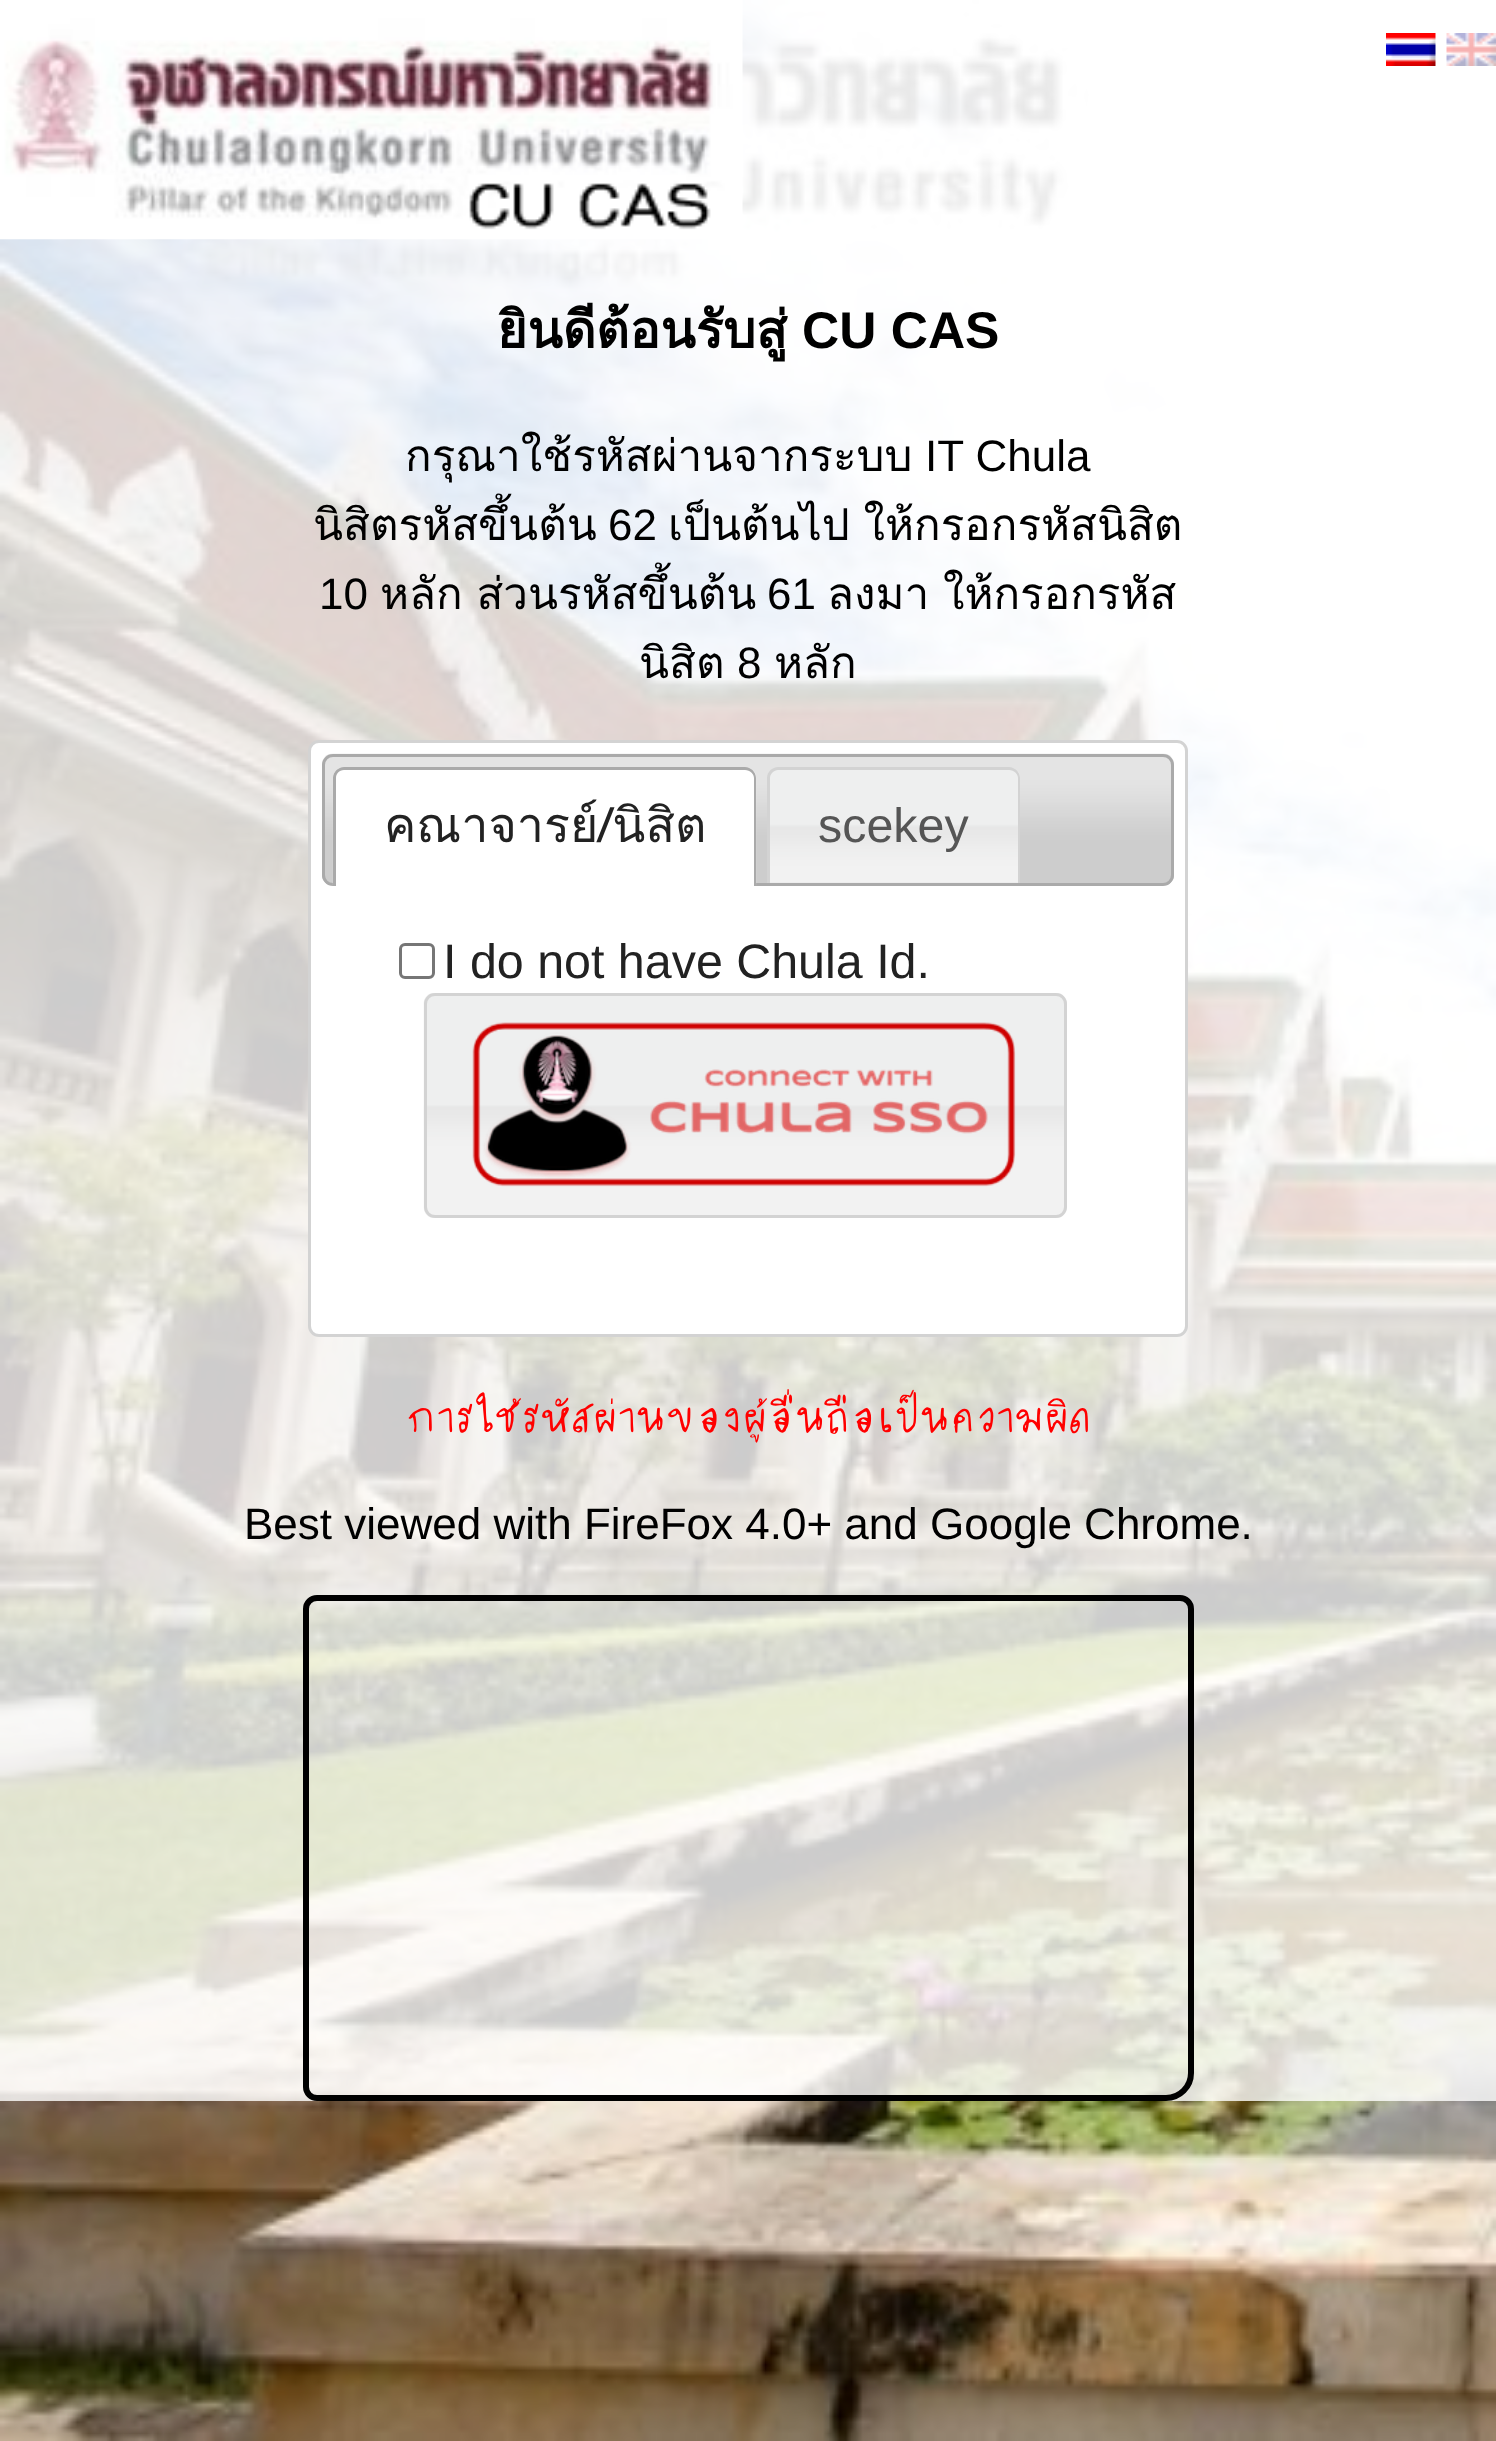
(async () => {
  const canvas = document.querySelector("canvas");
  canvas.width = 1496;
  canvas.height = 2441;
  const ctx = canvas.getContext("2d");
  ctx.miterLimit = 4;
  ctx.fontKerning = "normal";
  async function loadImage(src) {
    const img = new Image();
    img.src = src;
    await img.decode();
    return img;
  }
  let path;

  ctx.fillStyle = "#ffffff";
  ctx.fillRect(0, 0, 1496, 2441);
  ctx.drawImage(await loadImage("img/1.png"), 0, 0, 1496, 2441);
  ctx.fillStyle = "rgba(255, 255, 255, 0.8)";
  ctx.fillRect(0, 0, 1496, 2101);
  ctx.drawImage(await loadImage("img/2.png"), 0, 0, 743, 240);
  ctx.drawImage(await loadImage("img/3.png"), 1386, 33, 50, 33);
  ctx.drawImage(await loadImage("img/4.png"), 1446, 33, 50, 33);
  ctx.fillStyle = "#ffffff";
  ctx.beginPath();
  ctx.roundRect(309.5, 741.5, 877, 594, 9.5);
  ctx.fill();
  ctx.strokeStyle = "#d3d3d3";
  ctx.lineWidth = 3;
  ctx.stroke();
  ctx.drawImage(await loadImage("img/5.png"), 322, 753, 852, 132);
  ctx.beginPath();
  ctx.roundRect(323.5, 755.5, 849, 129, 9.5);
  ctx.strokeStyle = "#aaaaaa";
  ctx.stroke();
  ctx.beginPath();
  ctx.roundRect(336, 770, 418, 116, [8, 8, 0, 0]);
  ctx.fill();
  ctx.drawImage(await loadImage("img/6.png"), 332, 767, 425, 119);
  ctx.fillStyle = "#aaaaaa";
  path = new Path2D("M344 767H745C751 767 756 772 756 778V886H333V778C333 772 338 767 344 767ZM344 770H745C750 770 754 774 754 778V886H336V778C336 774 339 770 344 770Z");
  ctx.fill(path, "evenodd");
  ctx.fillStyle = "#e6e6e6";
  ctx.beginPath();
  ctx.roundRect(770, 770, 248, 113, [8, 8, 0, 0]);
  ctx.fill();
  ctx.drawImage(await loadImage("img/7.png"), 767, 767, 253, 116);
  ctx.fillStyle = "#d3d3d3";
  path = new Path2D("M778 767H1009C1015 767 1020 772 1020 778V883H767V778C767 772 772 767 778 767ZM778 770H1009C1014 770 1018 774 1018 778V883H770V778C770 774 774 770 778 770Z");
  ctx.fill(path, "evenodd");
  ctx.beginPath();
  ctx.roundRect(400.5, 944.5, 33, 33, 4.5);
  ctx.strokeStyle = "#767676";
  ctx.stroke();
  ctx.drawImage(await loadImage("img/8.png"), 423, 993, 644, 225);
  ctx.beginPath();
  ctx.roundRect(425.5, 994.5, 640, 222, 9.5);
  ctx.strokeStyle = "#d3d3d3";
  ctx.stroke();
  ctx.drawImage(await loadImage("img/9.png"), 472, 1022, 544, 165);
  ctx.beginPath();
  ctx.roundRect(306, 1598, 885, 500, [11, 11, 25, 11]);
  ctx.strokeStyle = "#000000";
  ctx.lineWidth = 6;
  ctx.stroke();
  ctx.font = "bold 51.5px Loma";
  ctx.fillStyle = "#000000";
  ctx.fillText("ยินดีต้อนรับสู่", 497, 348);
  ctx.font = "bold 51.5px Liberation Sans";
  ctx.fillText("CU CAS", 802, 348);
  ctx.font = "44px Loma";
  ctx.fillText("กรุณาใช้รหัสผ่านจากระบบ", 405, 471);
  ctx.font = "44px Liberation Sans";
  ctx.fillText("IT Chula", 925, 471);
  ctx.font = "44px Loma";
  ctx.fillText("นิสิตรหัสขึ้นต้น", 313, 540);
  ctx.font = "44px Liberation Sans";
  ctx.fillText("62", 608, 540);
  ctx.wordSpacing = "-1px";
  ctx.font = "44px Loma";
  ctx.fillText("เป็นต้นไป ให้กรอกรหัสนิสิต", 668, 540);
  ctx.wordSpacing = "0px";
  ctx.font = "44px Liberation Sans";
  ctx.fillText("10", 319, 609);
  ctx.wordSpacing = "-1px";
  ctx.font = "44px Loma";
  ctx.fillText("หลัก ส่วนรหัสขึ้นต้น", 380, 609);
  ctx.wordSpacing = "0px";
  ctx.font = "44px Liberation Sans";
  ctx.fillText("61", 767, 609);
  ctx.wordSpacing = "-1px";
  ctx.font = "44px Loma";
  ctx.fillText("ลงมา ให้กรอกรหัส", 827, 609);
  ctx.wordSpacing = "0px";
  ctx.fillText("นิสิต", 639, 678);
  ctx.font = "44px Liberation Sans";
  ctx.fillText("8", 737, 678);
  ctx.font = "44px Loma";
  ctx.fillText("หลัก", 774, 678);
  ctx.font = "48.4px Loma";
  ctx.fillStyle = "#222222";
  ctx.fillText("คณาจารย์/นิสิต", 384, 842);
  ctx.font = "48.4px Liberation Sans";
  ctx.fillStyle = "#555555";
  ctx.fillText("scekey", 818, 842);
  ctx.fillStyle = "#222222";
  ctx.fillText("I do not have Chula Id.", 443, 978);
  ctx.font = "44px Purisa";
  ctx.fillStyle = "#ff0000";
  ctx.fillText("การใช้รหัสผ่านของผู้อื่นถือเป็นความผิด", 406, 1432);
  ctx.font = "44px Liberation Sans";
  ctx.fillStyle = "#000000";
  ctx.fillText("Best viewed with FireFox 4.0+ and Google Chrome.", 244, 1539);
})();
